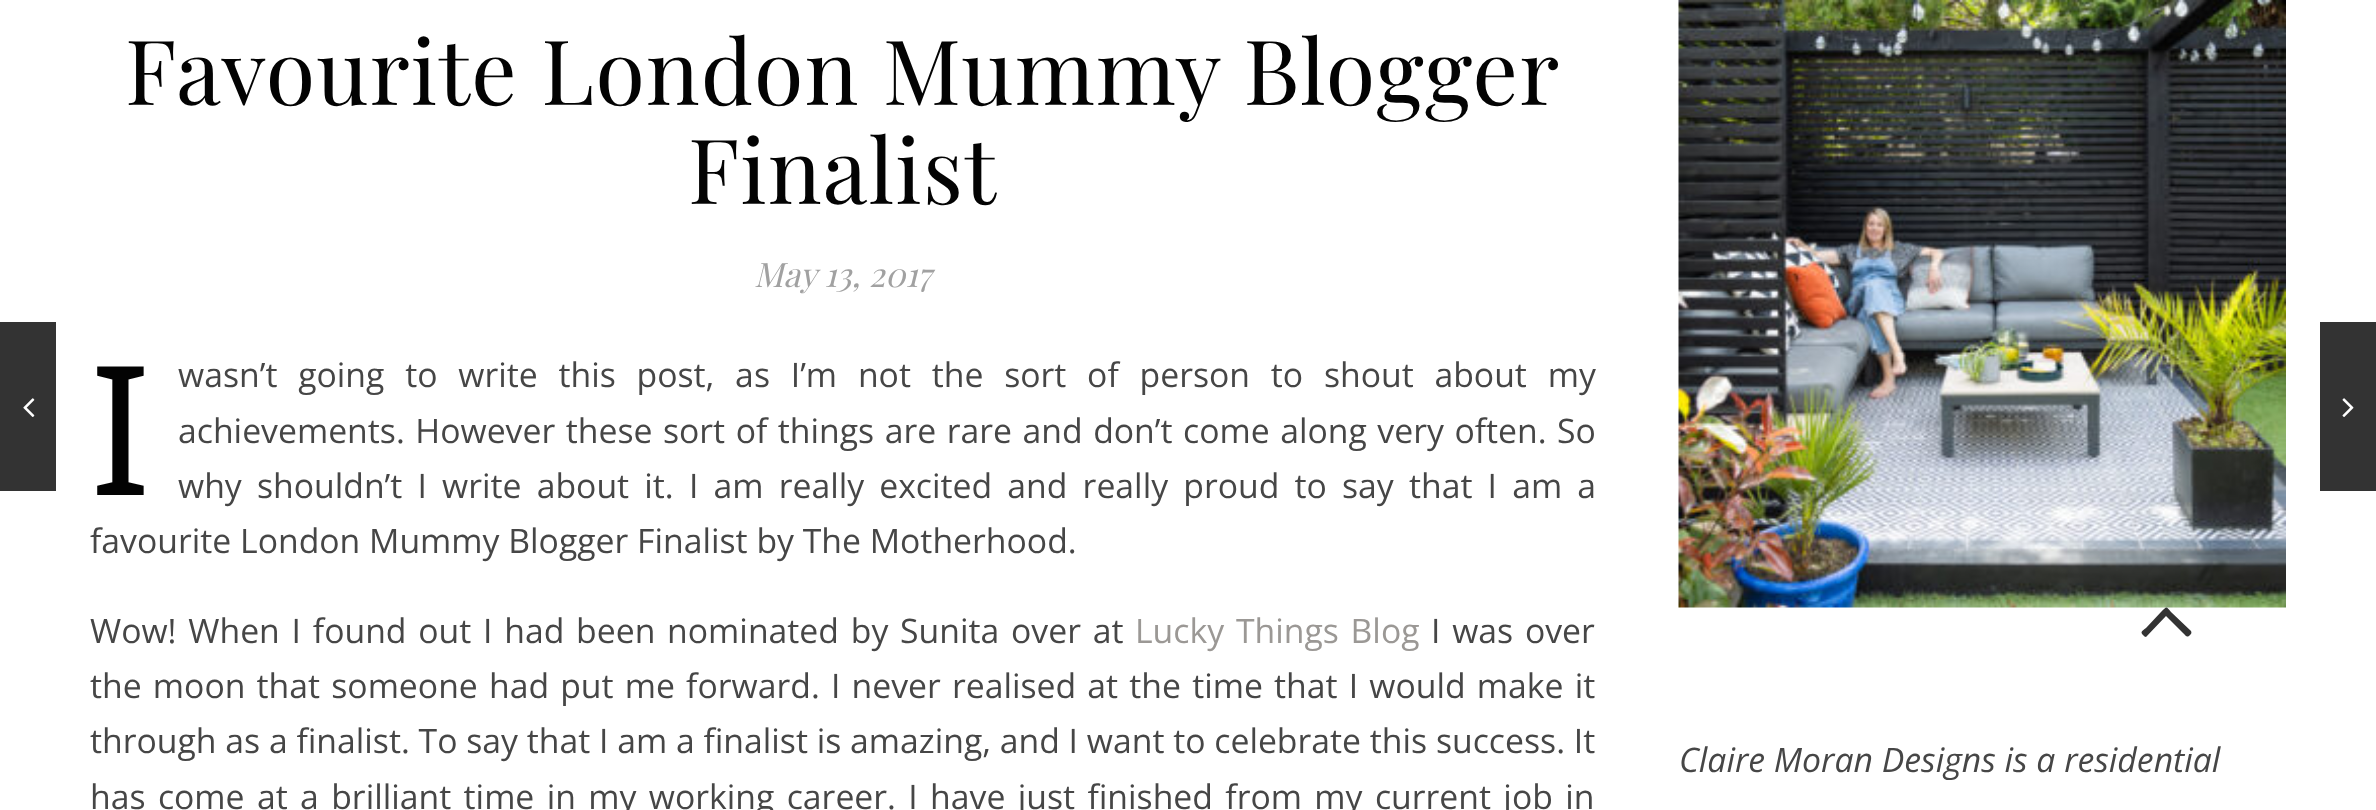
(async () => {
  const canvas = document.querySelector("canvas");
  canvas.width = 2376;
  canvas.height = 810;
  const ctx = canvas.getContext("2d");
  ctx.miterLimit = 4;
  ctx.fontKerning = "normal";
  async function loadImage(src) {
    const img = new Image();
    img.src = src;
    await img.decode();
    return img;
  }
  let path;

  ctx.fillStyle = "#ffffff";
  ctx.fillRect(0, 0, 2376, 810);
  ctx.fillStyle = "#333333";
  ctx.fillRect(0, 322, 56, 169);
  ctx.drawImage(await loadImage("img/1.png"), 23, 398, 12, 19);
  ctx.fillRect(2320, 322, 56, 169);
  ctx.drawImage(await loadImage("img/2.png"), 2342, 398, 12, 19);
  ctx.drawImage(await loadImage("img/3.png"), 1678, 0, 608, 608);
  path = new Path2D("M2191 631C2192 633 2191 634 2190 635C2187 638 2186 636 2183 633L2166 616L2146 637C2145 637 2144 636 2143 635C2140 632 2142 631 2146 628L2161 612C2167 606 2166 606 2171 612Z");
  ctx.fill(path);
  ctx.letterSpacing = "1.1px";
  ctx.font = "90px Playfair Display";
  ctx.fillStyle = "#030303";
  ctx.fillText("Favourite London Mummy Blogger", 125, 105);
  ctx.fillText("Finalist", 688, 204);
  ctx.letterSpacing = "0px";
  ctx.font = "italic 33.75px Playfair Display";
  ctx.fillStyle = "#a1a1a1";
  ctx.fillText("May 13, 2017", 754, 287);
  ctx.font = "180px Noto Sans";
  ctx.fillStyle = "#030303";
  ctx.fillText("I", 90, 495);
  ctx.wordSpacing = "12px";
  ctx.font = "33.75px Open Sans";
  ctx.fillStyle = "#464646";
  ctx.fillText("wasn’t going to write this post, as I’m not the sort of person to shout about my", 178, 387);
  ctx.wordSpacing = "1.75px";
  ctx.fillText("achievements. However these sort of things are rare and don’t come along very often. So", 178, 443);
  ctx.wordSpacing = "6.4px";
  ctx.fillText("why shouldn’t I write about it. I am really excited and really proud to say that I am a", 178, 498);
  ctx.wordSpacing = "0px";
  ctx.fillText("favourite London Mummy Blogger Finalist by The Motherhood.", 90, 553);
  ctx.wordSpacing = "3px";
  ctx.fillText("Wow! When I found out I had been nominated by Sunita over at", 90, 643);
  ctx.fillStyle = "#9b9895";
  ctx.fillText("Lucky Things Blog", 1135, 643);
  ctx.fillStyle = "#464646";
  ctx.fillText("I was over", 1431, 643);
  ctx.wordSpacing = "2.4px";
  ctx.fillText("the moon that someone had put me forward. I never realised at the time that I would make it", 90, 698);
  ctx.wordSpacing = "0px";
  ctx.fillText("through as a finalist. To say that I am a finalist is amazing, and I want to celebrate this success. It", 90, 753);
  ctx.wordSpacing = "3.6px";
  ctx.fillText("has come at a brilliant time in my working career. I have just finished from my current job in", 90, 809);
  ctx.wordSpacing = "0px";
  ctx.font = "italic 33.75px Open Sans";
  ctx.fillText("Claire Moran Designs is a residential", 1679, 772);
})();
